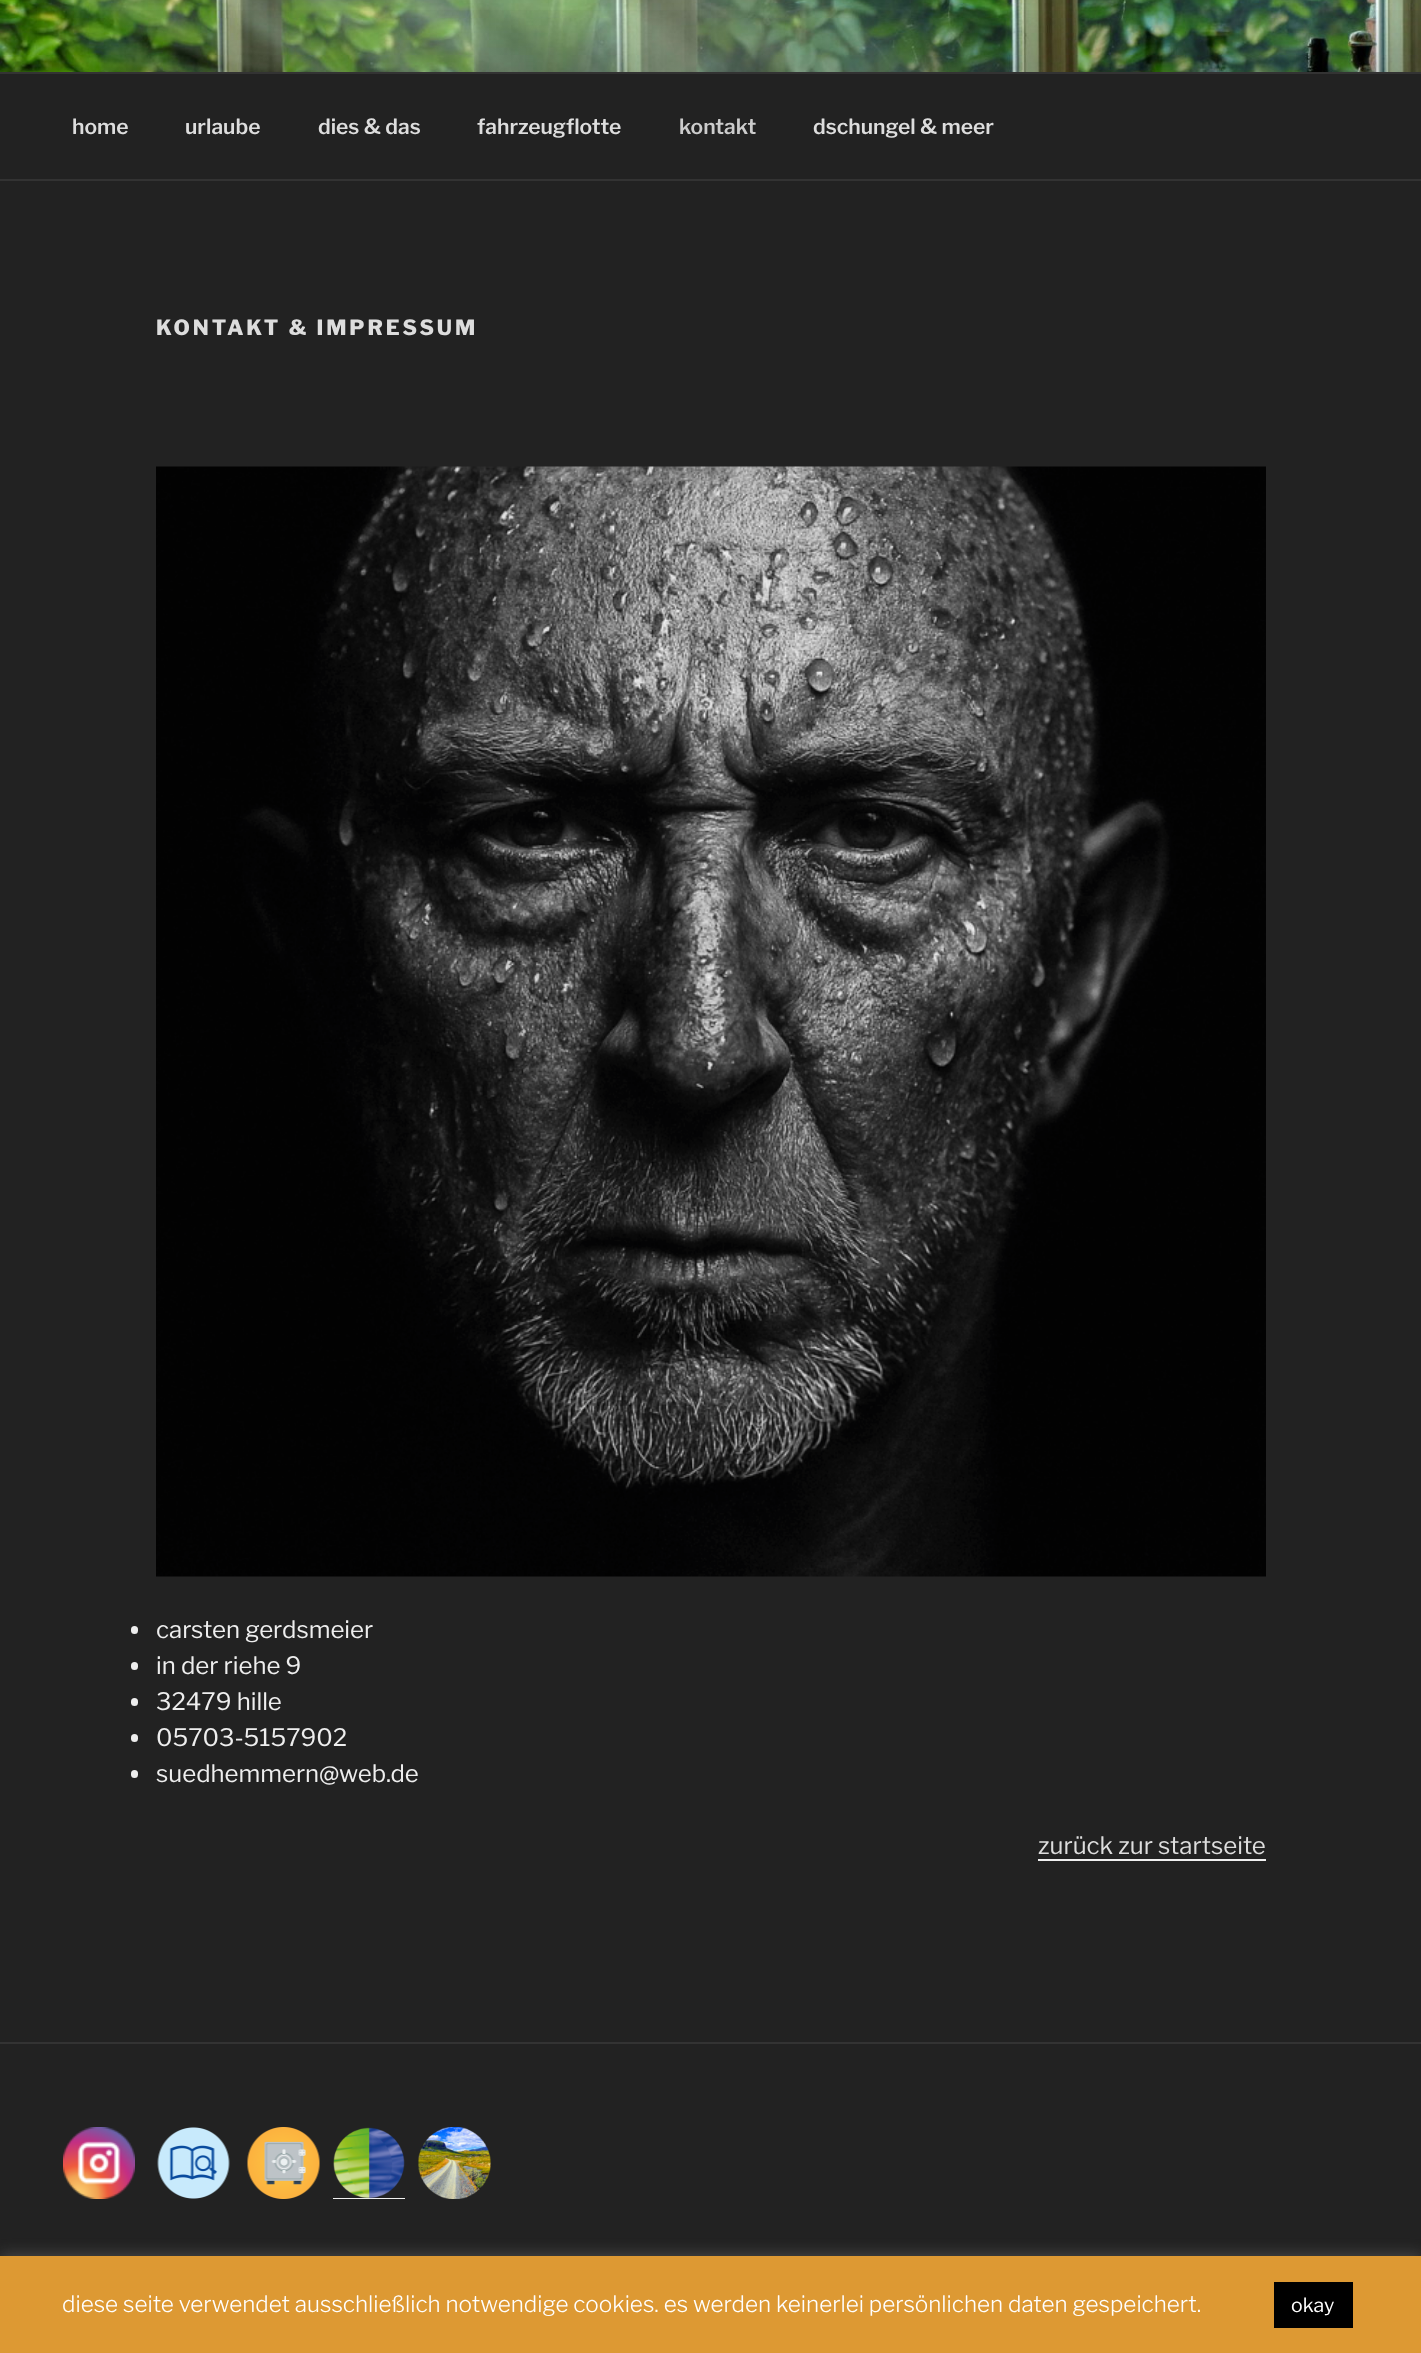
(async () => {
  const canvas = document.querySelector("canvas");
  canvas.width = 1421;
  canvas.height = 2353;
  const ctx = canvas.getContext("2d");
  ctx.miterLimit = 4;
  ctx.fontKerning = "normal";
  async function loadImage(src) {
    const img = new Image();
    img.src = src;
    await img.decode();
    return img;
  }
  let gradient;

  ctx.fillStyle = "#222222";
  ctx.fillRect(0, 0, 1421, 2353);
  ctx.drawImage(await loadImage("img/1.png"), 0, 0, 1421, 72);
  gradient = ctx.createLinearGradient(711, 0, 711, 180);
  gradient.addColorStop(0, "rgba(0, 0, 0, 0)");
  gradient.addColorStop(0.75, "rgba(0, 0, 0, 0.3)");
  gradient.addColorStop(1, "rgba(0, 0, 0, 0.3)");
  ctx.fillStyle = gradient;
  ctx.fillRect(0, 10, 1421, 62);
  ctx.fillStyle = "#333333";
  ctx.fillRect(0, 72, 1421, 2);
  ctx.fillRect(0, 179, 1421, 2);
  ctx.drawImage(await loadImage("img/2.png"), 156, 466, 1110, 1111);
  ctx.fillStyle = "#eeeeee";
  ctx.beginPath();
  ctx.roundRect(131, 1626, 7, 8, 3.5);
  ctx.fill();
  ctx.beginPath();
  ctx.roundRect(131, 1662, 7, 8, 3.5);
  ctx.fill();
  ctx.beginPath();
  ctx.roundRect(131, 1698, 7, 8, 3.5);
  ctx.fill();
  ctx.beginPath();
  ctx.roundRect(131, 1734, 7, 8, 3.5);
  ctx.fill();
  ctx.beginPath();
  ctx.roundRect(131, 1770, 7, 8, 3.5);
  ctx.fill();
  ctx.fillStyle = "#f0f0f0";
  ctx.fillRect(1038, 1859, 228, 2);
  ctx.fillStyle = "#333333";
  ctx.fillRect(0, 2042, 1421, 2);
  ctx.drawImage(await loadImage("img/3.png"), 63, 2127, 72, 72);
  ctx.drawImage(await loadImage("img/4.png"), 157, 2127, 73, 72);
  ctx.drawImage(await loadImage("img/5.png"), 247, 2127, 73, 72);
  ctx.fillStyle = "#f0f0f0";
  ctx.fillRect(333, 2198, 72, 1);
  ctx.drawImage(await loadImage("img/6.png"), 333, 2127, 72, 72);
  ctx.drawImage(await loadImage("img/7.png"), 418, 2127, 73, 72);
  ctx.fillStyle = "rgba(172, 171, 171, 0.3)";
  ctx.filter = "blur(7.5px)";
  ctx.beginPath();
  ctx.rect(0, 2255, 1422, 97);
  ctx.fill();
  ctx.filter = "none";
  ctx.fillStyle = "#dd9933";
  ctx.fillRect(0, 2256, 1421, 97);
  ctx.fillStyle = "#000000";
  ctx.fillRect(1274, 2282, 79, 46);
  ctx.font = "100 21px 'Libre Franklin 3'";
  ctx.fillStyle = "#dddddd";
  for (const [text, x, y] of [
    ["home", 72, 134],
    ["urlaube", 185, 134],
    ["dies & das", 318, 134],
    ["fahrzeugflotte", 477, 134],
  ]) {
    ctx.fillText(text, x, y);
  }
  ctx.fillStyle = "#cccccc";
  ctx.fillText("kontakt", 679, 134);
  ctx.fillStyle = "#dddddd";
  ctx.fillText("dschungel & meer", 813, 134);
  ctx.letterSpacing = "2.9px";
  ctx.font = "100 21px Libre Franklin";
  ctx.fillText("KONTAKT & IMPRESSUM", 156, 335);
  ctx.letterSpacing = "0px";
  ctx.font = "100 24px 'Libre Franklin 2'";
  ctx.fillStyle = "#eeeeee";
  for (const [text, x, y] of [
    ["carsten gerdsmeier", 156, 1638],
    ["in der riehe 9", 156, 1674],
    ["32479 hille", 156, 1710],
    ["05703-5157902", 156, 1746],
    ["suedhemmern@web.de", 156, 1782],
  ]) {
    ctx.fillText(text, x, y);
  }
  ctx.fillStyle = "#dddddd";
  ctx.fillText("zurück zur startseite", 1038, 1854);
  ctx.font = "100 22.5px 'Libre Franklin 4'";
  ctx.fillStyle = "#ffffff";
  ctx.fillText("diese seite verwendet ausschließlich notwendige cookies. es werden keinerlei persönlichen daten gespeichert.", 62, 2312);
  ctx.font = "100 19.5px 'Libre Franklin 2'";
  ctx.fillText("okay", 1291, 2312);
})();
